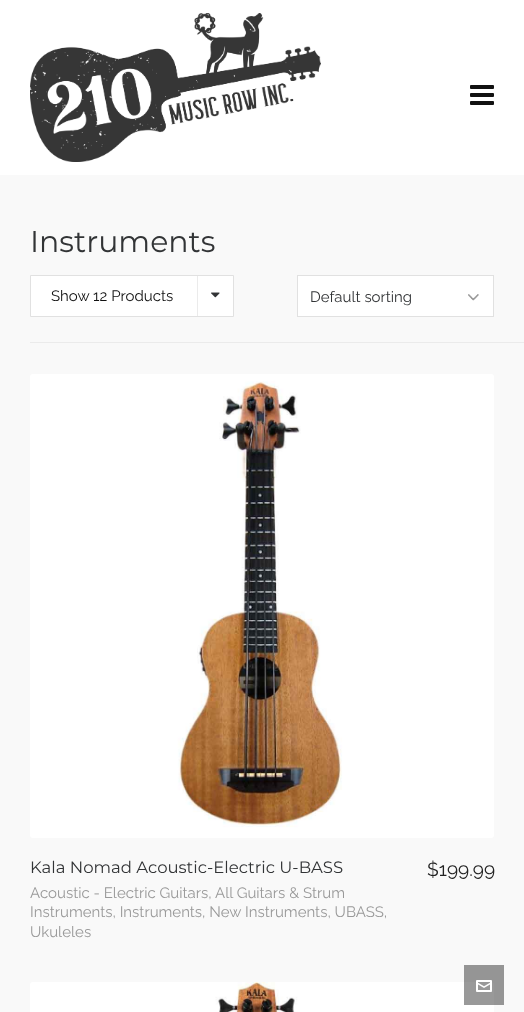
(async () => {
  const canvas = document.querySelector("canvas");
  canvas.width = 524;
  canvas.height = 1012;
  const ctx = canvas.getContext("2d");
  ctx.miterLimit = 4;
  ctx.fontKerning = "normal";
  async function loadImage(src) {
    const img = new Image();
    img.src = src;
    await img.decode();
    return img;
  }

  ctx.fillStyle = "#f9f9f9";
  ctx.fillRect(0, 0, 524, 1012);
  ctx.fillStyle = "#ffffff";
  ctx.fillRect(0, 0, 524, 175);
  ctx.drawImage(await loadImage("img/1.png"), 30, 13, 291, 149);
  ctx.drawImage(await loadImage("img/2.png"), 470, 85, 24, 20);
  ctx.beginPath();
  ctx.rect(30.5, 275.5, 203, 41);
  ctx.fill();
  ctx.strokeStyle = "#e1e1e1";
  ctx.stroke();
  ctx.fillStyle = "#ebebeb";
  ctx.fillRect(197, 276, 1, 40);
  ctx.drawImage(await loadImage("img/3.png"), 211, 292, 9, 6);
  ctx.fillStyle = "#ffffff";
  ctx.fillRect(298, 276, 195, 40);
  ctx.drawImage(await loadImage("img/4.png"), 468, 294, 11, 7);
  ctx.strokeRect(297.5, 275.5, 196, 41);
  ctx.fillStyle = "#ebebeb";
  ctx.fillRect(30, 342, 494, 1);
  ctx.drawImage(await loadImage("img/5.png"), 30, 374, 464, 464);
  ctx.drawImage(await loadImage("img/6.png"), 30, 982, 464, 30);
  ctx.fillStyle = "rgba(0, 0, 0, 0.4)";
  ctx.fillRect(464, 965, 40, 40);
  ctx.drawImage(await loadImage("img/7.png"), 476, 980, 16, 12);
  ctx.font = "100 30px Montserrat";
  ctx.fillStyle = "#323436";
  ctx.fillText("Instruments", 30, 252);
  ctx.font = "100 15px Raleway";
  ctx.fillStyle = "#111111";
  ctx.fillText("Show 12 Products", 51, 301);
  ctx.fillStyle = "#323436";
  ctx.fillText("Default sorting", 310, 302);
  ctx.font = "100 16.5px Montserrat";
  ctx.fillText("Kala Nomad Acoustic-Electric U-BASS", 30, 873);
  ctx.font = "100 15px Raleway";
  ctx.fillStyle = "#999999";
  for (const [text, x, y] of [
    ["Acoustic - Electric Guitars,", 30, 898],
    ["All Guitars & Strum", 215, 898],
    ["Instruments, Instruments, New Instruments, UBASS,", 30, 917],
    ["Ukuleles", 30, 937],
  ]) {
    ctx.fillText(text, x, y);
  }
  ctx.font = "100 19px Raleway";
  ctx.fillStyle = "#222222";
  ctx.fillText("$199.99", 427, 876);
})();
